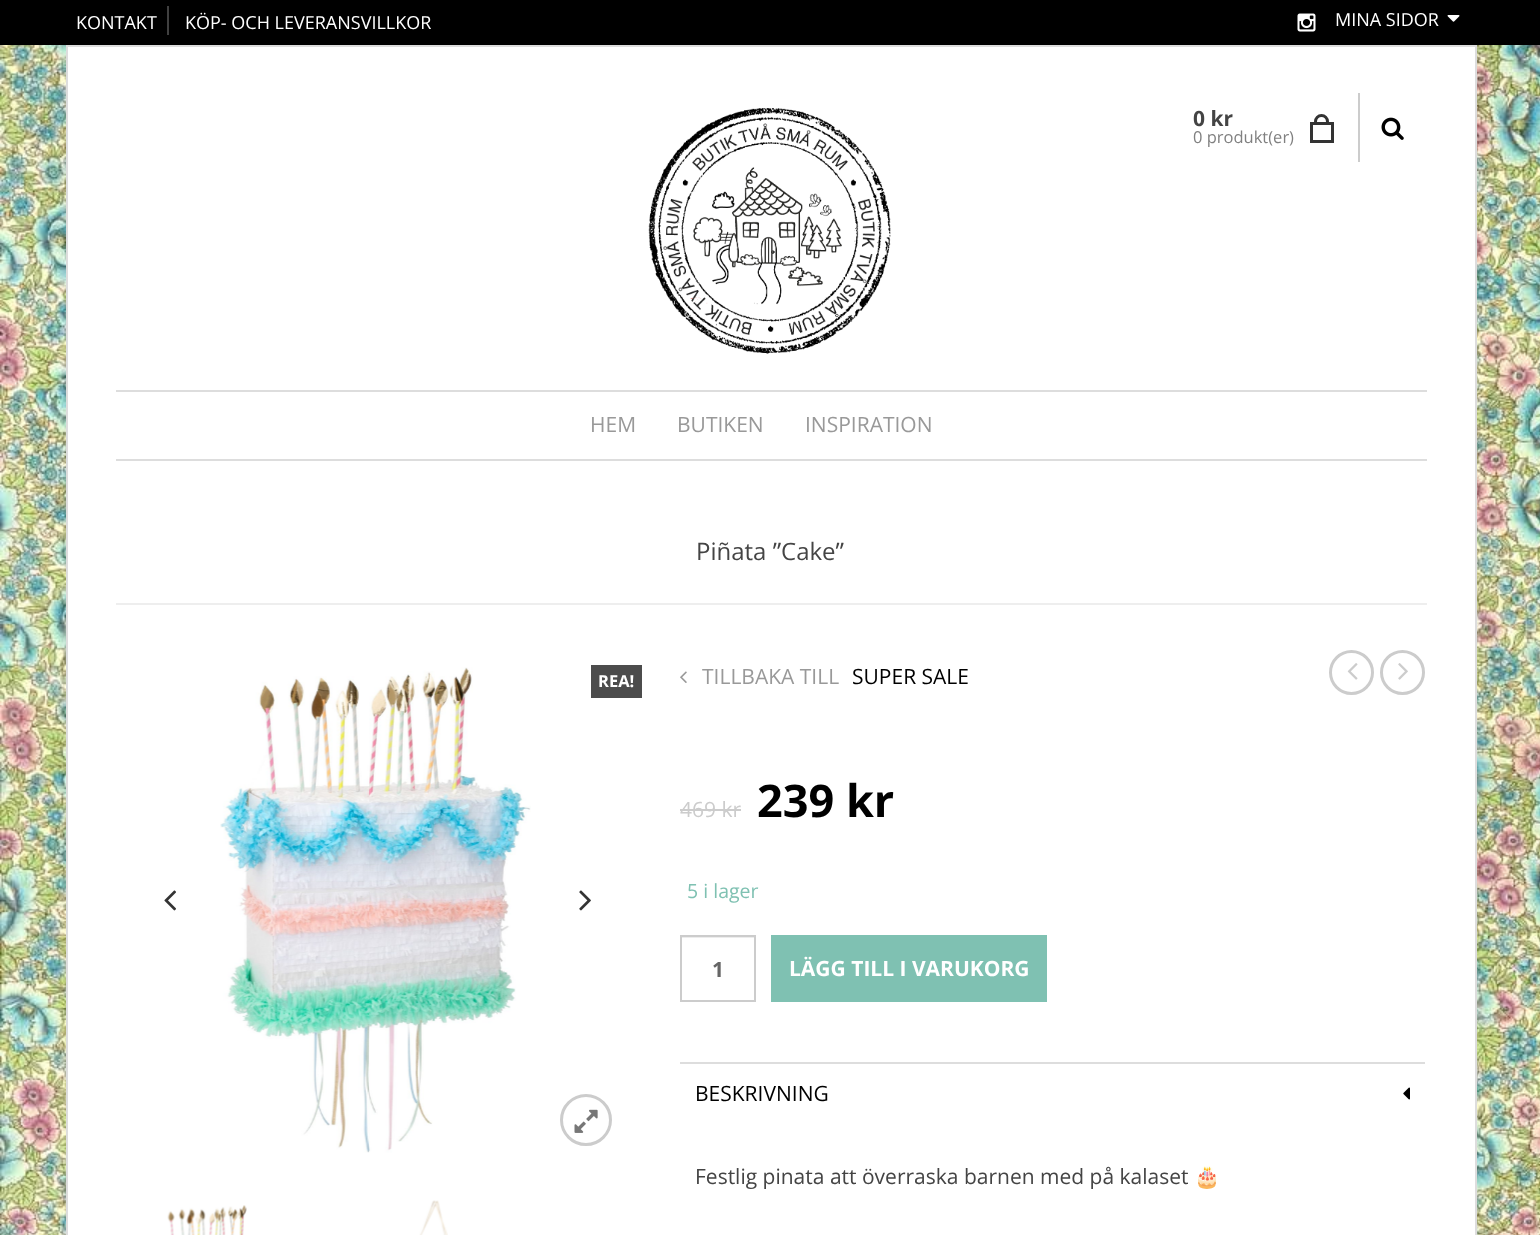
(async () => {
  const canvas = document.querySelector("canvas");
  canvas.width = 1540;
  canvas.height = 1235;
  const ctx = canvas.getContext("2d");
  ctx.miterLimit = 4;
  ctx.fontKerning = "normal";
  async function loadImage(src) {
    const img = new Image();
    img.src = src;
    await img.decode();
    return img;
  }

  ctx.fillStyle = "#ffffff";
  ctx.fillRect(0, 0, 1540, 1235);
  ctx.drawImage(await loadImage("img/1.png"), 0, 45, 1540, 1190);
  ctx.fillStyle = "#000000";
  ctx.fillRect(0, 0, 1540, 45);
  ctx.fillStyle = "#404040";
  ctx.fillRect(167, 6, 2, 29);
  ctx.drawImage(await loadImage("img/2.png"), 1297, 13, 19, 19);
  ctx.drawImage(await loadImage("img/3.png"), 1447, 15, 13, 7);
  for (const [x, y, w, h, color] of [
    [66, 45, 1410, 2, "#dddddd"],
    [1475, 45, 2, 416, "#dddddd"],
    [66, 45, 2, 416, "#dddddd"],
    [68, 47, 1407, 1188, "#ffffff"],
  ]) {
    ctx.fillStyle = color;
    ctx.fillRect(x, y, w, h);
  }
  ctx.drawImage(await loadImage("img/4.png"), 648, 108, 243, 246);
  ctx.beginPath();
  ctx.arc(1321.5, 121.5, 6, 0, Math.PI * 2);
  ctx.strokeStyle = "#333333";
  ctx.lineWidth = 3;
  ctx.stroke();
  ctx.fillRect(1315, 125, 13, 4);
  ctx.strokeRect(1311.5, 123.5, 21, 18);
  ctx.fillStyle = "#cccccc";
  ctx.fillRect(1358, 93, 2, 69);
  ctx.drawImage(await loadImage("img/5.png"), 1381, 117, 23, 23);
  for (const [x, y, w, h, color] of [
    [116, 390, 1311, 2, "#dddddd"],
    [116, 459, 1311, 2, "#dddddd"],
    [1475, 461, 2, 774, "#dddddd"],
    [66, 461, 2, 774, "#dddddd"],
    [116, 603, 1311, 2, "#eeeeee"],
  ]) {
    ctx.fillStyle = color;
    ctx.fillRect(x, y, w, h);
  }
  ctx.drawImage(await loadImage("img/6.png"), 164, 890, 12, 21);
  ctx.drawImage(await loadImage("img/7.png"), 220, 667, 311, 486);
  ctx.beginPath();
  ctx.arc(586, 1120, 24.5, 0, Math.PI * 2);
  ctx.strokeStyle = "#cccccc";
  ctx.stroke();
  ctx.drawImage(await loadImage("img/8.png"), 574, 1109, 24, 24);
  ctx.drawImage(await loadImage("img/9.png"), 579, 890, 12, 21);
  ctx.drawImage(await loadImage("img/10.png"), 167, 1205, 80, 30);
  ctx.drawImage(await loadImage("img/11.png"), 419, 1200, 29, 35);
  ctx.fillStyle = "#4c4c4c";
  ctx.fillRect(591, 665, 51, 33);
  ctx.drawImage(await loadImage("img/12.png"), 680, 671, 7, 12);
  ctx.beginPath();
  ctx.arc(1351.5, 672.5, 21, 0, Math.PI * 2);
  ctx.stroke();
  ctx.drawImage(await loadImage("img/13.png"), 1347, 663, 11, 17);
  ctx.beginPath();
  ctx.arc(1402.5, 672.5, 21, 0, Math.PI * 2);
  ctx.stroke();
  ctx.drawImage(await loadImage("img/14.png"), 1398, 663, 10, 17);
  ctx.fillStyle = "#cccccc";
  ctx.fillRect(680, 809, 61, 2);
  ctx.fillStyle = "#ececec";
  ctx.fillRect(681, 937, 74, 1);
  ctx.lineWidth = 2;
  ctx.strokeRect(681, 936, 74, 65);
  ctx.fillStyle = "#7fc1b2";
  ctx.fillRect(771, 935, 276, 67);
  ctx.fillStyle = "#dddddd";
  ctx.fillRect(680, 1062, 745, 2);
  ctx.drawImage(await loadImage("img/15.png"), 1403, 1087, 7, 13);
  ctx.font = "18px Open Sans";
  ctx.fillStyle = "#ffffff";
  for (const [text, x, y] of [
    ["KONTAKT", 76, 29],
    ["KÖP- OCH LEVERANSVILLKOR", 185, 29],
    ["MINA SIDOR", 1335, 26],
  ]) {
    ctx.fillText(text, x, y);
  }
  ctx.font = "bold 21px Open Sans";
  ctx.fillStyle = "#444444";
  ctx.fillText("0 kr", 1193, 126);
  ctx.font = "16.5px Open Sans";
  ctx.fillStyle = "#808080";
  ctx.fillText("0 produkt(er)", 1193, 143);
  ctx.font = "21px Open Sans";
  ctx.fillStyle = "#999999";
  for (const [text, x, y] of [
    ["HEM", 590, 432],
    ["BUTIKEN", 677, 432],
    ["INSPIRATION", 805, 432],
  ]) {
    ctx.fillText(text, x, y);
  }
  ctx.font = "24px Open Sans";
  ctx.fillStyle = "#444444";
  ctx.fillText("Piñata ”Cake”", 696, 560);
  ctx.font = "bold 16.5px Open Sans";
  ctx.fillStyle = "#ffffff";
  ctx.fillText("REA!", 598, 687);
  ctx.font = "21px Open Sans";
  ctx.fillStyle = "#999999";
  ctx.fillText("TILLBAKA TILL", 702, 684);
  ctx.fillStyle = "#000000";
  ctx.fillText("SUPER SALE", 852, 684);
  ctx.fillStyle = "#cccccc";
  ctx.fillText("469 kr", 680, 817);
  ctx.font = "bold 45px Open Sans";
  ctx.fillStyle = "#000000";
  ctx.fillText("239 kr", 757, 817);
  ctx.font = "19.5px Open Sans";
  ctx.fillStyle = "#7fc1b2";
  ctx.fillText("5 i lager", 687, 898);
  ctx.font = "bold 21px Open Sans";
  ctx.fillStyle = "#666666";
  ctx.fillText("1", 712, 977);
  ctx.fillStyle = "#ffffff";
  ctx.fillText("LÄGG TILL I VARUKORG", 789, 976);
  ctx.font = "21px Open Sans";
  ctx.fillStyle = "#000000";
  ctx.fillText("BESKRIVNING", 695, 1101);
  ctx.fillStyle = "#444444";
  ctx.fillText("Festlig pinata att överraska barnen med på kalaset", 695, 1184);
  ctx.font = "21px Noto Color Emoji";
  ctx.fillText("🎂", 1194, 1184);
})();
